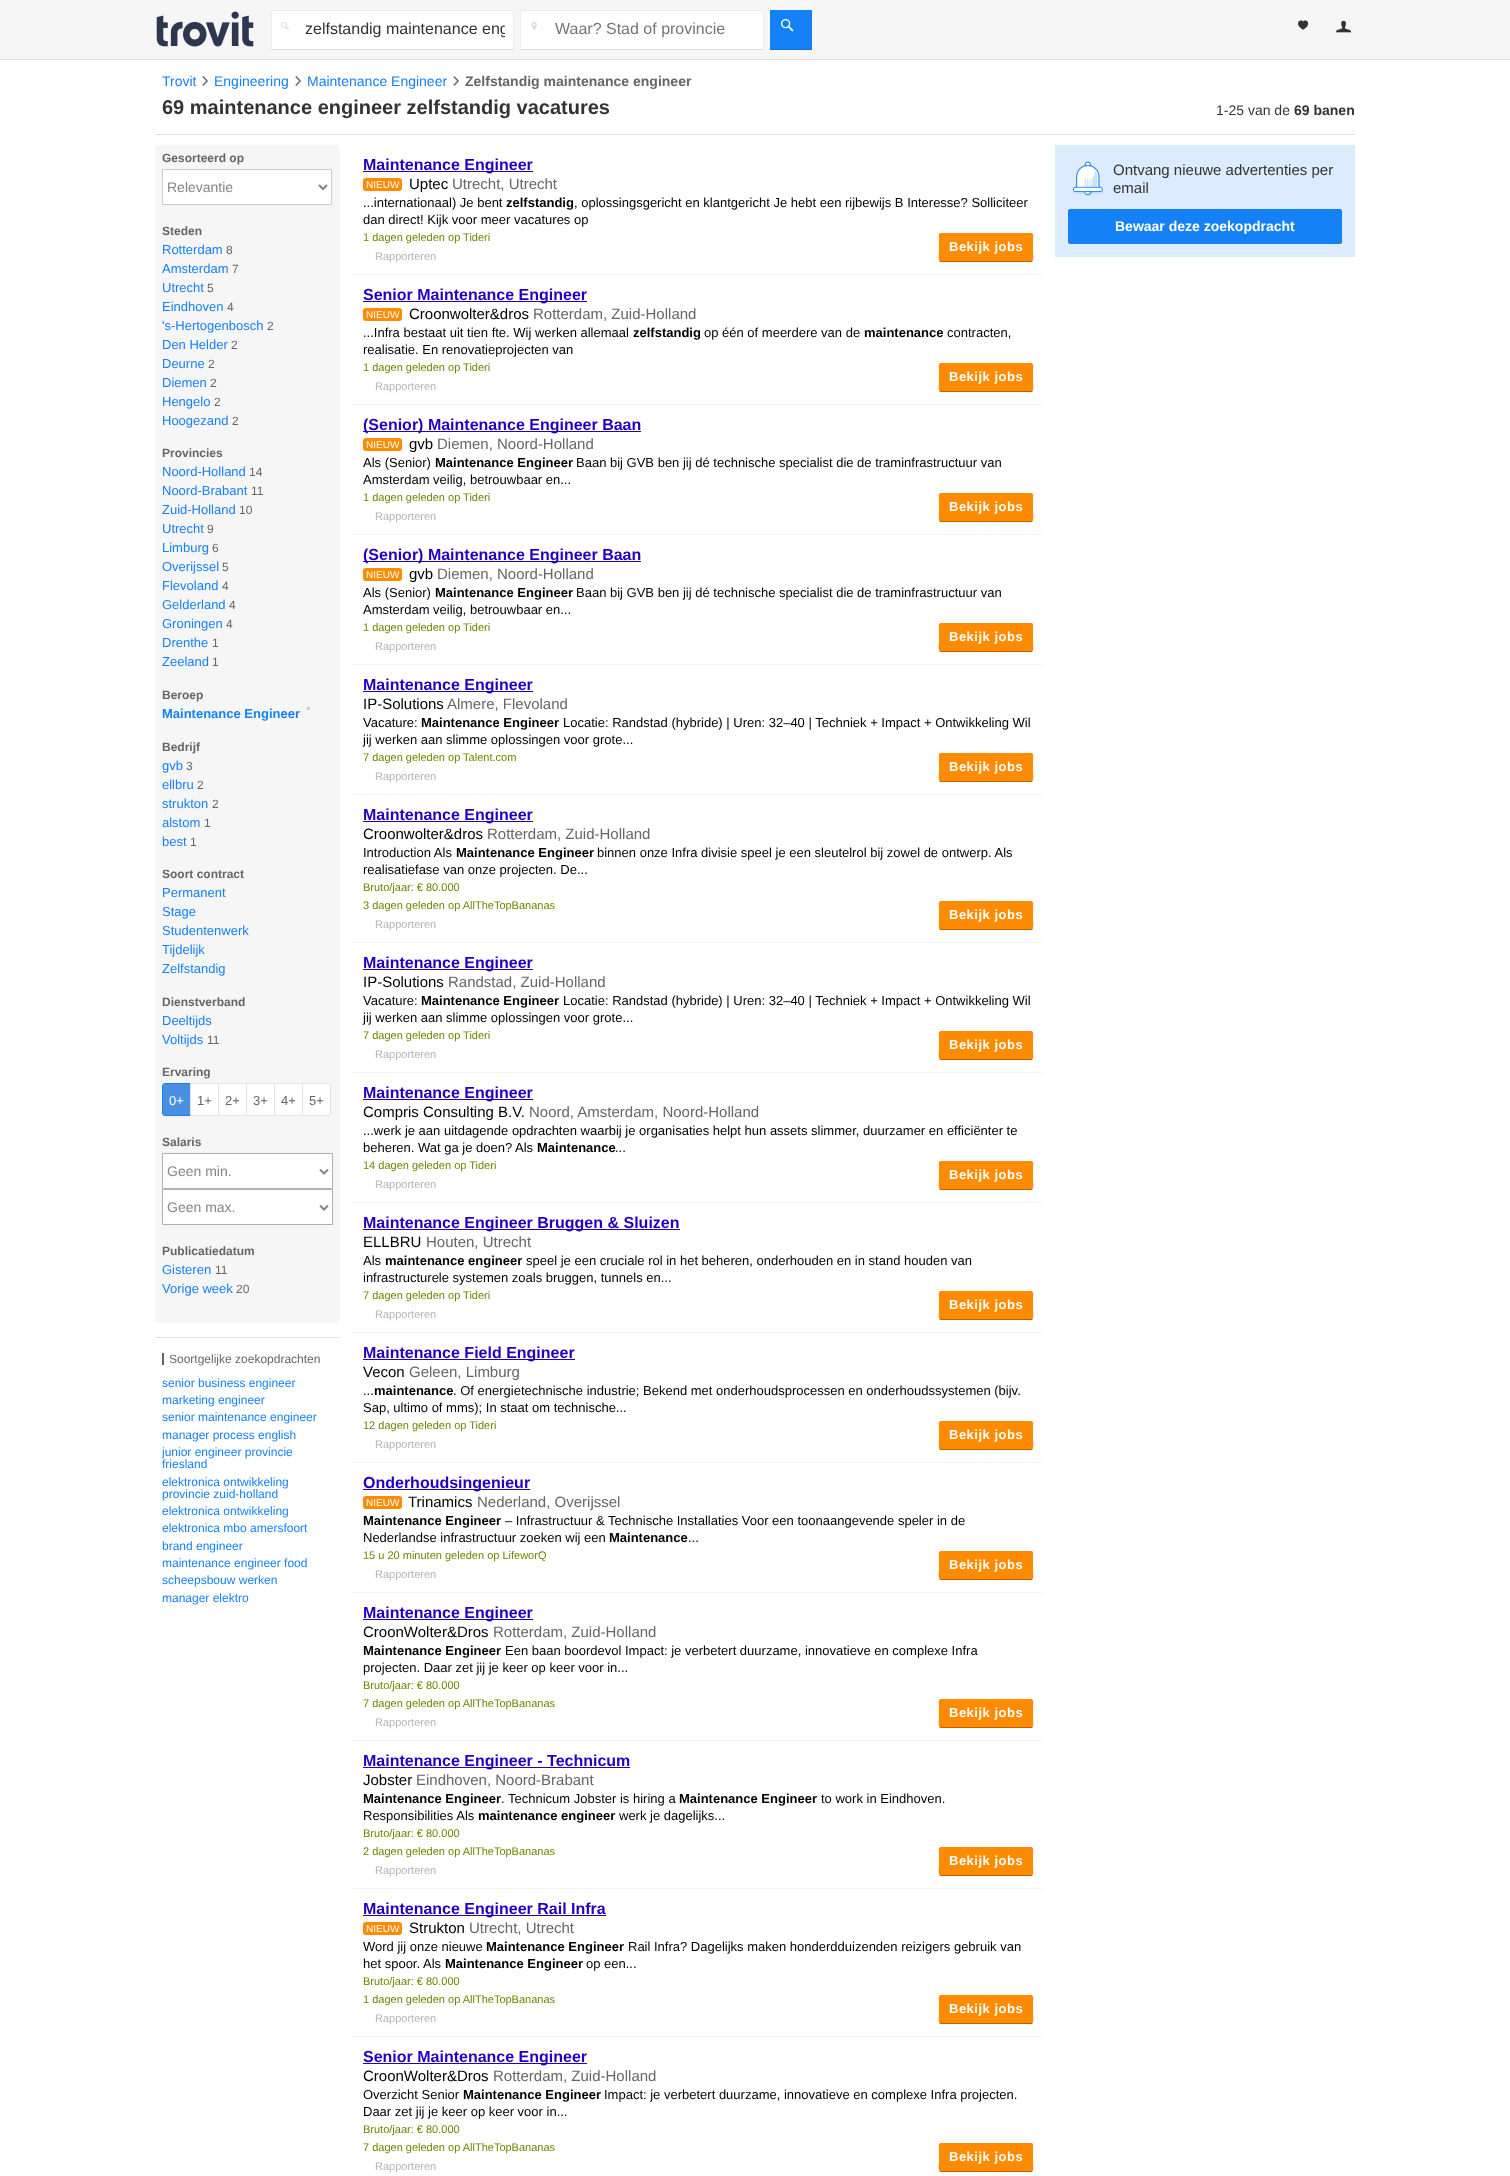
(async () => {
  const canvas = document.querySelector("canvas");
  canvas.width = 1510;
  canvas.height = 2176;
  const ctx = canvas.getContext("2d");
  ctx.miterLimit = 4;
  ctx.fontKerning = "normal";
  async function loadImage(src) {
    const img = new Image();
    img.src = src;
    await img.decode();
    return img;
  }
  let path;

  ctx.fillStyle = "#ffffff";
  ctx.fillRect(0, 0, 1510, 2176);
  ctx.fillStyle = "#f6f6f7";
  ctx.fillRect(0, 0, 1510, 59);
  ctx.fillStyle = "#e1e0e0";
  ctx.fillRect(0, 59, 1510, 1);
  ctx.drawImage(await loadImage("img/1.png"), 156, 11, 98, 36);
  ctx.fillStyle = "#ffffff";
  ctx.fillRect(272, 11, 241, 38);
  ctx.drawImage(await loadImage("img/2.png"), 281, 22, 8, 8);
  for (const [x, y, w, h, color] of [
    [271, 10, 243, 1, "#eeeeee"],
    [513, 10, 1, 40, "#eeeeee"],
    [271, 49, 243, 1, "#dddddd"],
    [271, 10, 1, 40, "#eeeeee"],
    [521, 11, 242, 38, "#ffffff"],
  ]) {
    ctx.fillStyle = color;
    ctx.fillRect(x, y, w, h);
  }
  ctx.drawImage(await loadImage("img/3.png"), 531, 22, 6, 8);
  for (const [x, y, w, h, color] of [
    [520, 10, 244, 1, "#eeeeee"],
    [763, 10, 1, 40, "#eeeeee"],
    [520, 49, 244, 1, "#dddddd"],
    [520, 10, 1, 40, "#eeeeee"],
    [770, 10, 42, 39, "#1481f7"],
    [770, 49, 42, 1, "#1271d8"],
  ]) {
    ctx.fillStyle = color;
    ctx.fillRect(x, y, w, h);
  }
  ctx.drawImage(await loadImage("img/4.png"), 781, 19, 13, 13);
  ctx.drawImage(await loadImage("img/5.png"), 1298, 20, 11, 10);
  ctx.drawImage(await loadImage("img/6.png"), 1336, 20, 16, 13);
  ctx.fillStyle = "#e2e2e2";
  ctx.fillRect(155, 134, 1200, 1);
  ctx.drawImage(await loadImage("img/7.png"), 202, 76, 6, 10);
  ctx.drawImage(await loadImage("img/7.png"), 295, 76, 6, 10);
  ctx.drawImage(await loadImage("img/7.png"), 453, 76, 6, 10);
  ctx.fillStyle = "#f6f6f7";
  ctx.beginPath();
  ctx.roundRect(155, 145, 185, 1178, 4);
  ctx.fill();
  ctx.fillStyle = "#ffffff";
  ctx.beginPath();
  ctx.rect(162.5, 169.5, 169, 35);
  ctx.fill();
  ctx.strokeStyle = "#cccccc";
  ctx.stroke();
  path = new Path2D("M319 185L323 189L327 185");
  ctx.strokeStyle = "#858585";
  ctx.lineWidth = 2;
  ctx.stroke(path);
  ctx.fillStyle = "#d0d0d1";
  ctx.fillRect(307, 707, 3, 3);
  ctx.fillStyle = "#4a90e2";
  ctx.beginPath();
  ctx.roundRect(162.5, 1083.5, 28, 32, [2.5, 0, 0, 2.5]);
  ctx.fill();
  ctx.strokeStyle = "#1481f7";
  ctx.lineWidth = 1;
  ctx.stroke();
  ctx.fillStyle = "#ffffff";
  ctx.beginPath();
  ctx.rect(190.5, 1083.5, 28, 32);
  ctx.fill();
  ctx.strokeStyle = "#e4e3e3";
  ctx.stroke();
  ctx.beginPath();
  ctx.rect(218.5, 1083.5, 28, 32);
  ctx.fill();
  ctx.stroke();
  ctx.beginPath();
  ctx.rect(246.5, 1083.5, 28, 32);
  ctx.fill();
  ctx.stroke();
  ctx.beginPath();
  ctx.rect(274.5, 1083.5, 28, 32);
  ctx.fill();
  ctx.stroke();
  ctx.beginPath();
  ctx.roundRect(302.5, 1083.5, 28, 32, [0, 2.5, 2.5, 0]);
  ctx.fill();
  ctx.stroke();
  ctx.beginPath();
  ctx.rect(162.5, 1153.5, 170, 35);
  ctx.fill();
  ctx.strokeStyle = "#b2b2b2";
  ctx.stroke();
  path = new Path2D("M320 1169.5L324 1173.5L328 1169.5");
  ctx.strokeStyle = "#858585";
  ctx.lineWidth = 2;
  ctx.stroke(path);
  ctx.beginPath();
  ctx.rect(162.5, 1189.5, 170, 35);
  ctx.fill();
  ctx.strokeStyle = "#b2b2b2";
  ctx.lineWidth = 1;
  ctx.stroke();
  path = new Path2D("M320 1205.5L324 1209.5L328 1205.5");
  ctx.strokeStyle = "#858585";
  ctx.lineWidth = 2;
  ctx.stroke(path);
  ctx.fillStyle = "#e2e2e2";
  ctx.fillRect(155, 1337, 185, 1);
  ctx.fillStyle = "#666666";
  ctx.fillRect(162, 1353, 2, 12);
  ctx.fillStyle = "#f3f3f3";
  path = new Path2D("M1043 275H350L353 274H1043Z");
  ctx.fill(path);
  ctx.fillStyle = "#ffffff";
  path = new Path2D("M350 275V145H353V274Z");
  ctx.fill(path);
  ctx.fillStyle = "#2200c1";
  ctx.fillRect(363, 171, 170, 1);
  ctx.fillStyle = "#ff8b02";
  ctx.beginPath();
  ctx.roundRect(363, 178, 39, 13, 3);
  ctx.fill();
  ctx.beginPath();
  ctx.roundRect(939, 233, 94, 29, 2);
  ctx.fill();
  path = new Path2D("M1032 261L1031 261.5H941L940 261");
  ctx.strokeStyle = "#c25f00";
  ctx.lineWidth = 1;
  ctx.stroke(path);
  path = new Path2D("M940 261C938.5 259.5 939.5 253.5 939.5 251.5V239C939.5 238.5 938.5 233.5 941 233.5H1031C1033.5 233.5 1032.5 238.5 1032.5 239V251.5C1032.5 253.5 1033.5 259.5 1032 261");
  ctx.strokeStyle = "#ff8b02";
  ctx.stroke(path);
  ctx.fillStyle = "#f3f3f3";
  path = new Path2D("M1043 405H350L353 404H1043Z");
  ctx.fill(path);
  ctx.fillStyle = "#ffffff";
  path = new Path2D("M350 405V275H353V404Z");
  ctx.fill(path);
  ctx.fillStyle = "#2200c1";
  ctx.fillRect(363, 301, 224, 1);
  ctx.fillStyle = "#ff8b02";
  ctx.beginPath();
  ctx.roundRect(363, 308, 39, 13, 3);
  ctx.fill();
  ctx.beginPath();
  ctx.roundRect(939, 363, 94, 29, 2);
  ctx.fill();
  path = new Path2D("M1032 391L1031 391.5H941L940 391");
  ctx.strokeStyle = "#c25f00";
  ctx.stroke(path);
  path = new Path2D("M940 391C938.5 389.5 939.5 383.5 939.5 381.5V369C939.5 368.5 938.5 363.5 941 363.5H1031C1033.5 363.5 1032.5 368.5 1032.5 369V381.5C1032.5 383.5 1033.5 389.5 1032 391");
  ctx.strokeStyle = "#ff8b02";
  ctx.stroke(path);
  ctx.fillStyle = "#f3f3f3";
  path = new Path2D("M1043 535H350L353 534H1043Z");
  ctx.fill(path);
  ctx.fillStyle = "#ffffff";
  path = new Path2D("M350 535V405H353V534Z");
  ctx.fill(path);
  ctx.fillStyle = "#2200c1";
  ctx.fillRect(363, 431, 278, 1);
  ctx.fillStyle = "#ff8b02";
  ctx.beginPath();
  ctx.roundRect(363, 438, 39, 13, 3);
  ctx.fill();
  ctx.beginPath();
  ctx.roundRect(939, 493, 94, 29, 2);
  ctx.fill();
  path = new Path2D("M1032 521L1031 521.5H941L940 521");
  ctx.strokeStyle = "#c25f00";
  ctx.stroke(path);
  path = new Path2D("M940 521C938.5 519.5 939.5 513.5 939.5 511.5V499C939.5 498.5 938.5 493.5 941 493.5H1031C1033.5 493.5 1032.5 498.5 1032.5 499V511.5C1032.5 513.5 1033.5 519.5 1032 521");
  ctx.strokeStyle = "#ff8b02";
  ctx.stroke(path);
  ctx.fillStyle = "#f3f3f3";
  path = new Path2D("M1043 665H350L353 664H1043Z");
  ctx.fill(path);
  ctx.fillStyle = "#ffffff";
  path = new Path2D("M350 665V535H353V664Z");
  ctx.fill(path);
  ctx.fillStyle = "#2200c1";
  ctx.fillRect(363, 561, 278, 1);
  ctx.fillStyle = "#ff8b02";
  ctx.beginPath();
  ctx.roundRect(363, 568, 39, 13, 3);
  ctx.fill();
  ctx.beginPath();
  ctx.roundRect(939, 623, 94, 29, 2);
  ctx.fill();
  path = new Path2D("M1032 651L1031 651.5H941L940 651");
  ctx.strokeStyle = "#c25f00";
  ctx.stroke(path);
  path = new Path2D("M940 651C938.5 649.5 939.5 643.5 939.5 641.5V629C939.5 628.5 938.5 623.5 941 623.5H1031C1033.5 623.5 1032.5 628.5 1032.5 629V641.5C1032.5 643.5 1033.5 649.5 1032 651");
  ctx.strokeStyle = "#ff8b02";
  ctx.stroke(path);
  ctx.fillStyle = "#f3f3f3";
  path = new Path2D("M1043 795H350L353 794H1043Z");
  ctx.fill(path);
  ctx.fillStyle = "#ffffff";
  path = new Path2D("M350 795V665H353V794Z");
  ctx.fill(path);
  ctx.fillStyle = "#2200c1";
  ctx.fillRect(363, 691, 170, 1);
  ctx.fillStyle = "#ff8b02";
  ctx.beginPath();
  ctx.roundRect(939, 753, 94, 29, 2);
  ctx.fill();
  path = new Path2D("M1032 781L1031 781.5H941L940 781");
  ctx.strokeStyle = "#c25f00";
  ctx.stroke(path);
  path = new Path2D("M940 781C938.5 779.5 939.5 773.5 939.5 771.5V759C939.5 758.5 938.5 753.5 941 753.5H1031C1033.5 753.5 1032.5 758.5 1032.5 759V771.5C1032.5 773.5 1033.5 779.5 1032 781");
  ctx.strokeStyle = "#ff8b02";
  ctx.stroke(path);
  ctx.fillStyle = "#f3f3f3";
  path = new Path2D("M1043 943H350L353 942H1043Z");
  ctx.fill(path);
  ctx.fillStyle = "#ffffff";
  path = new Path2D("M350 943V795H353V942Z");
  ctx.fill(path);
  ctx.fillStyle = "#2200c1";
  ctx.fillRect(363, 821, 170, 1);
  ctx.fillStyle = "#ff8b02";
  ctx.beginPath();
  ctx.roundRect(939, 901, 94, 29, 2);
  ctx.fill();
  path = new Path2D("M1032 929L1031 929.5H941L940 929");
  ctx.strokeStyle = "#c25f00";
  ctx.stroke(path);
  path = new Path2D("M940 929C938.5 927.5 939.5 921.5 939.5 919.5V907C939.5 906.5 938.5 901.5 941 901.5H1031C1033.5 901.5 1032.5 906.5 1032.5 907V919.5C1032.5 921.5 1033.5 927.5 1032 929");
  ctx.strokeStyle = "#ff8b02";
  ctx.stroke(path);
  ctx.fillStyle = "#f3f3f3";
  path = new Path2D("M1043 1073H350L353 1072H1043Z");
  ctx.fill(path);
  ctx.fillStyle = "#ffffff";
  path = new Path2D("M350 1073V943H353V1072Z");
  ctx.fill(path);
  ctx.fillStyle = "#2200c1";
  ctx.fillRect(363, 969, 170, 1);
  ctx.fillStyle = "#ff8b02";
  ctx.beginPath();
  ctx.roundRect(939, 1031, 94, 29, 2);
  ctx.fill();
  path = new Path2D("M1032 1059L1031 1059.5H941L940 1059");
  ctx.strokeStyle = "#c25f00";
  ctx.stroke(path);
  path = new Path2D("M940 1059C938.5 1057.5 939.5 1051.5 939.5 1049.5V1037C939.5 1036.5 938.5 1031.5 941 1031.5H1031C1033.5 1031.5 1032.5 1036.5 1032.5 1037V1049.5C1032.5 1051.5 1033.5 1057.5 1032 1059");
  ctx.strokeStyle = "#ff8b02";
  ctx.stroke(path);
  ctx.fillStyle = "#f3f3f3";
  path = new Path2D("M1043 1203H350L353 1202H1043Z");
  ctx.fill(path);
  ctx.fillStyle = "#ffffff";
  path = new Path2D("M350 1203V1073H353V1202Z");
  ctx.fill(path);
  ctx.fillStyle = "#2200c1";
  ctx.fillRect(363, 1099, 170, 1);
  ctx.fillStyle = "#ff8b02";
  ctx.beginPath();
  ctx.roundRect(939, 1161, 94, 29, 2);
  ctx.fill();
  path = new Path2D("M1032 1189L1031 1189.5H941L940 1189");
  ctx.strokeStyle = "#c25f00";
  ctx.stroke(path);
  path = new Path2D("M940 1189C938.5 1187.5 939.5 1181.5 939.5 1179.5V1167C939.5 1166.5 938.5 1161.5 941 1161.5H1031C1033.5 1161.5 1032.5 1166.5 1032.5 1167V1179.5C1032.5 1181.5 1033.5 1187.5 1032 1189");
  ctx.strokeStyle = "#ff8b02";
  ctx.stroke(path);
  ctx.fillStyle = "#f3f3f3";
  path = new Path2D("M1043 1333H350L353 1332H1043Z");
  ctx.fill(path);
  ctx.fillStyle = "#ffffff";
  path = new Path2D("M350 1333V1203H353V1332Z");
  ctx.fill(path);
  ctx.fillStyle = "#2200c1";
  ctx.fillRect(363, 1229, 317, 1);
  ctx.fillStyle = "#ff8b02";
  ctx.beginPath();
  ctx.roundRect(939, 1291, 94, 29, 2);
  ctx.fill();
  path = new Path2D("M1032 1319L1031 1319.5H941L940 1319");
  ctx.strokeStyle = "#c25f00";
  ctx.stroke(path);
  path = new Path2D("M940 1319C938.5 1317.5 939.5 1311.5 939.5 1309.5V1297C939.5 1296.5 938.5 1291.5 941 1291.5H1031C1033.5 1291.5 1032.5 1296.5 1032.5 1297V1309.5C1032.5 1311.5 1033.5 1317.5 1032 1319");
  ctx.strokeStyle = "#ff8b02";
  ctx.stroke(path);
  ctx.fillStyle = "#f3f3f3";
  path = new Path2D("M1043 1463H350L353 1462H1043Z");
  ctx.fill(path);
  ctx.fillStyle = "#ffffff";
  path = new Path2D("M350 1463V1333H353V1462Z");
  ctx.fill(path);
  ctx.fillStyle = "#2200c1";
  ctx.fillRect(363, 1359, 212, 1);
  ctx.fillStyle = "#ff8b02";
  ctx.beginPath();
  ctx.roundRect(939, 1421, 94, 29, 2);
  ctx.fill();
  path = new Path2D("M1032 1449L1031 1449.5H941L940 1449");
  ctx.strokeStyle = "#c25f00";
  ctx.stroke(path);
  path = new Path2D("M940 1449C938.5 1447.5 939.5 1441.5 939.5 1439.5V1427C939.5 1426.5 938.5 1421.5 941 1421.5H1031C1033.5 1421.5 1032.5 1426.5 1032.5 1427V1439.5C1032.5 1441.5 1033.5 1447.5 1032 1449");
  ctx.strokeStyle = "#ff8b02";
  ctx.stroke(path);
  ctx.fillStyle = "#f3f3f3";
  path = new Path2D("M1043 1593H350L353 1592H1043Z");
  ctx.fill(path);
  ctx.fillStyle = "#ffffff";
  path = new Path2D("M350 1593V1463H353V1592Z");
  ctx.fill(path);
  ctx.fillStyle = "#2200c1";
  ctx.fillRect(363, 1489, 167, 1);
  ctx.fillStyle = "#ff8b02";
  ctx.beginPath();
  ctx.roundRect(363, 1496, 39, 13, 3);
  ctx.fill();
  ctx.beginPath();
  ctx.roundRect(939, 1551, 94, 29, 2);
  ctx.fill();
  path = new Path2D("M1032 1579L1031 1579.5H941L940 1579");
  ctx.strokeStyle = "#c25f00";
  ctx.stroke(path);
  path = new Path2D("M940 1579C938.5 1577.5 939.5 1571.5 939.5 1569.5V1557C939.5 1556.5 938.5 1551.5 941 1551.5H1031C1033.5 1551.5 1032.5 1556.5 1032.5 1557V1569.5C1032.5 1571.5 1033.5 1577.5 1032 1579");
  ctx.strokeStyle = "#ff8b02";
  ctx.stroke(path);
  ctx.fillStyle = "#f3f3f3";
  path = new Path2D("M1043 1741H350L353 1740H1043Z");
  ctx.fill(path);
  ctx.fillStyle = "#ffffff";
  path = new Path2D("M350 1741V1593H353V1740Z");
  ctx.fill(path);
  ctx.fillStyle = "#2200c1";
  ctx.fillRect(363, 1619, 170, 1);
  ctx.fillStyle = "#ff8b02";
  ctx.beginPath();
  ctx.roundRect(939, 1699, 94, 29, 2);
  ctx.fill();
  path = new Path2D("M1032 1727L1031 1727.5H941L940 1727");
  ctx.strokeStyle = "#c25f00";
  ctx.stroke(path);
  path = new Path2D("M940 1727C938.5 1725.5 939.5 1719.5 939.5 1717.5V1705C939.5 1704.5 938.5 1699.5 941 1699.5H1031C1033.5 1699.5 1032.5 1704.5 1032.5 1705V1717.5C1032.5 1719.5 1033.5 1725.5 1032 1727");
  ctx.strokeStyle = "#ff8b02";
  ctx.stroke(path);
  ctx.fillStyle = "#f3f3f3";
  path = new Path2D("M1043 1889H350L353 1888H1043Z");
  ctx.fill(path);
  ctx.fillStyle = "#ffffff";
  path = new Path2D("M350 1889V1741H353V1888Z");
  ctx.fill(path);
  ctx.fillStyle = "#2200c1";
  ctx.fillRect(363, 1767, 267, 1);
  ctx.fillStyle = "#ff8b02";
  ctx.beginPath();
  ctx.roundRect(939, 1847, 94, 29, 2);
  ctx.fill();
  path = new Path2D("M1032 1875L1031 1875.5H941L940 1875");
  ctx.strokeStyle = "#c25f00";
  ctx.stroke(path);
  path = new Path2D("M940 1875C938.5 1873.5 939.5 1867.5 939.5 1865.5V1853C939.5 1852.5 938.5 1847.5 941 1847.5H1031C1033.5 1847.5 1032.5 1852.5 1032.5 1853V1865.5C1032.5 1867.5 1033.5 1873.5 1032 1875");
  ctx.strokeStyle = "#ff8b02";
  ctx.stroke(path);
  ctx.fillStyle = "#f3f3f3";
  path = new Path2D("M1043 2037H350L353 2036H1043Z");
  ctx.fill(path);
  ctx.fillStyle = "#ffffff";
  path = new Path2D("M350 2037V1889H353V2036Z");
  ctx.fill(path);
  ctx.fillStyle = "#2200c1";
  ctx.fillRect(363, 1915, 243, 1);
  ctx.fillStyle = "#ff8b02";
  ctx.beginPath();
  ctx.roundRect(363, 1922, 39, 13, 3);
  ctx.fill();
  ctx.beginPath();
  ctx.roundRect(939, 1995, 94, 29, 2);
  ctx.fill();
  path = new Path2D("M1032 2023L1031 2023.5H941L940 2023");
  ctx.strokeStyle = "#c25f00";
  ctx.stroke(path);
  path = new Path2D("M940 2023C938.5 2021.5 939.5 2015.5 939.5 2013.5V2001C939.5 2000.5 938.5 1995.5 941 1995.5H1031C1033.5 1995.5 1032.5 2000.5 1032.5 2001V2013.5C1032.5 2015.5 1033.5 2021.5 1032 2023");
  ctx.strokeStyle = "#ff8b02";
  ctx.stroke(path);
  ctx.fillStyle = "#2200c1";
  ctx.fillRect(363, 2063, 224, 1);
  ctx.fillStyle = "#ff8b02";
  ctx.beginPath();
  ctx.roundRect(939, 2143, 94, 29, 2);
  ctx.fill();
  path = new Path2D("M1032 2171L1031 2171.5H941L940 2171");
  ctx.strokeStyle = "#c25f00";
  ctx.stroke(path);
  path = new Path2D("M940 2171C938.5 2169.5 939.5 2163.5 939.5 2161.5V2149C939.5 2148.5 938.5 2143.5 941 2143.5H1031C1033.5 2143.5 1032.5 2148.5 1032.5 2149V2161.5C1032.5 2163.5 1033.5 2169.5 1032 2171");
  ctx.strokeStyle = "#ff8b02";
  ctx.stroke(path);
  ctx.fillStyle = "#dcebfe";
  ctx.fillRect(1055, 145, 300, 112);
  ctx.drawImage(await loadImage("img/8.png"), 1073, 161, 31, 35);
  ctx.fillStyle = "#1481f7";
  ctx.beginPath();
  ctx.roundRect(1068.5, 209.5, 273, 34, 1.5);
  ctx.fill();
  ctx.strokeStyle = "#1481f7";
  ctx.stroke();
  ctx.save();
  ctx.beginPath();
  ctx.rect(305, 18, 200, 23);
  ctx.clip();
  ctx.font = "16px Liberation Sans";
  ctx.fillStyle = "#333333";
  ctx.fillText("zelfstandig maintenance eng", 305, 34);
  ctx.restore();
  ctx.font = "16px Liberation Sans";
  ctx.fillStyle = "#757575";
  ctx.fillText("Waar? Stad of provincie", 555, 34);
  ctx.font = "14px Liberation Sans";
  ctx.fillStyle = "#1481f7";
  for (const [text, x, y] of [
    ["Trovit", 162, 86],
    ["Engineering", 214, 86],
    ["Maintenance Engineer", 307, 86],
  ]) {
    ctx.fillText(text, x, y);
  }
  ctx.font = "bold 14px Liberation Sans";
  ctx.fillStyle = "#666666";
  ctx.fillText("Zelfstandig maintenance engineer", 465, 86);
  ctx.font = "bold 20px Liberation Sans";
  ctx.fillStyle = "#333333";
  ctx.fillText("69 maintenance engineer zelfstandig vacatures", 162, 114);
  ctx.font = "14px Liberation Sans";
  ctx.fillText("1-25 van de", 1216, 115);
  ctx.font = "bold 14px Liberation Sans";
  ctx.fillText("69 banen", 1294, 115);
  ctx.font = "bold 12px Liberation Sans";
  ctx.fillStyle = "#666666";
  ctx.fillText("Gesorteerd op", 162, 162);
  ctx.font = "14px Liberation Sans";
  ctx.fillStyle = "#858585";
  ctx.fillText("Relevantie", 167, 192);
  ctx.font = "bold 12px Liberation Sans";
  ctx.fillStyle = "#666666";
  ctx.fillText("Steden", 162, 235);
  ctx.font = "13px Liberation Sans";
  ctx.fillStyle = "#1481f7";
  ctx.fillText("Rotterdam", 162, 254);
  ctx.font = "12px Liberation Sans";
  ctx.fillStyle = "#666666";
  ctx.fillText("8", 226, 254);
  ctx.font = "13px Liberation Sans";
  ctx.fillStyle = "#1481f7";
  ctx.fillText("Amsterdam", 162, 273);
  ctx.font = "12px Liberation Sans";
  ctx.fillStyle = "#666666";
  ctx.fillText("7", 232, 273);
  ctx.font = "13px Liberation Sans";
  ctx.fillStyle = "#1481f7";
  ctx.fillText("Utrecht", 162, 292);
  ctx.font = "12px Liberation Sans";
  ctx.fillStyle = "#666666";
  ctx.fillText("5", 207, 292);
  ctx.font = "13px Liberation Sans";
  ctx.fillStyle = "#1481f7";
  ctx.fillText("Eindhoven", 162, 311);
  ctx.font = "12px Liberation Sans";
  ctx.fillStyle = "#666666";
  ctx.fillText("4", 227, 311);
  ctx.font = "13px Liberation Sans";
  ctx.fillStyle = "#1481f7";
  ctx.fillText("'s-Hertogenbosch", 162, 330);
  ctx.font = "12px Liberation Sans";
  ctx.fillStyle = "#666666";
  ctx.fillText("2", 267, 330);
  ctx.font = "13px Liberation Sans";
  ctx.fillStyle = "#1481f7";
  ctx.fillText("Den Helder", 162, 349);
  ctx.font = "12px Liberation Sans";
  ctx.fillStyle = "#666666";
  ctx.fillText("2", 231, 349);
  ctx.font = "13px Liberation Sans";
  ctx.fillStyle = "#1481f7";
  ctx.fillText("Deurne", 162, 368);
  ctx.font = "12px Liberation Sans";
  ctx.fillStyle = "#666666";
  ctx.fillText("2", 208, 368);
  ctx.font = "13px Liberation Sans";
  ctx.fillStyle = "#1481f7";
  ctx.fillText("Diemen", 162, 387);
  ctx.font = "12px Liberation Sans";
  ctx.fillStyle = "#666666";
  ctx.fillText("2", 210, 387);
  ctx.font = "13px Liberation Sans";
  ctx.fillStyle = "#1481f7";
  ctx.fillText("Hengelo", 162, 406);
  ctx.font = "12px Liberation Sans";
  ctx.fillStyle = "#666666";
  ctx.fillText("2", 214, 406);
  ctx.font = "13px Liberation Sans";
  ctx.fillStyle = "#1481f7";
  ctx.fillText("Hoogezand", 162, 425);
  ctx.font = "12px Liberation Sans";
  ctx.fillStyle = "#666666";
  ctx.fillText("2", 232, 425);
  ctx.font = "bold 12px Liberation Sans";
  ctx.fillText("Provincies", 162, 457);
  ctx.font = "13px Liberation Sans";
  ctx.fillStyle = "#1481f7";
  ctx.fillText("Noord-Holland", 162, 476);
  ctx.font = "12px Liberation Sans";
  ctx.fillStyle = "#666666";
  ctx.fillText("14", 249, 476);
  ctx.font = "13px Liberation Sans";
  ctx.fillStyle = "#1481f7";
  ctx.fillText("Noord-Brabant", 162, 495);
  ctx.font = "12px Liberation Sans";
  ctx.fillStyle = "#666666";
  ctx.fillText("11", 251, 495);
  ctx.font = "13px Liberation Sans";
  ctx.fillStyle = "#1481f7";
  ctx.fillText("Zuid-Holland", 162, 514);
  ctx.font = "12px Liberation Sans";
  ctx.fillStyle = "#666666";
  ctx.fillText("10", 239, 514);
  ctx.font = "13px Liberation Sans";
  ctx.fillStyle = "#1481f7";
  ctx.fillText("Utrecht", 162, 533);
  ctx.font = "12px Liberation Sans";
  ctx.fillStyle = "#666666";
  ctx.fillText("9", 207, 533);
  ctx.font = "13px Liberation Sans";
  ctx.fillStyle = "#1481f7";
  ctx.fillText("Limburg", 162, 552);
  ctx.font = "12px Liberation Sans";
  ctx.fillStyle = "#666666";
  ctx.fillText("6", 212, 552);
  ctx.font = "13px Liberation Sans";
  ctx.fillStyle = "#1481f7";
  ctx.fillText("Overijssel", 162, 571);
  ctx.font = "12px Liberation Sans";
  ctx.fillStyle = "#666666";
  ctx.fillText("5", 222, 571);
  ctx.font = "13px Liberation Sans";
  ctx.fillStyle = "#1481f7";
  ctx.fillText("Flevoland", 162, 590);
  ctx.font = "12px Liberation Sans";
  ctx.fillStyle = "#666666";
  ctx.fillText("4", 222, 590);
  ctx.font = "13px Liberation Sans";
  ctx.fillStyle = "#1481f7";
  ctx.fillText("Gelderland", 162, 609);
  ctx.font = "12px Liberation Sans";
  ctx.fillStyle = "#666666";
  ctx.fillText("4", 229, 609);
  ctx.font = "13px Liberation Sans";
  ctx.fillStyle = "#1481f7";
  ctx.fillText("Groningen", 162, 628);
  ctx.font = "12px Liberation Sans";
  ctx.fillStyle = "#666666";
  ctx.fillText("4", 226, 628);
  ctx.font = "13px Liberation Sans";
  ctx.fillStyle = "#1481f7";
  ctx.fillText("Drenthe", 162, 647);
  ctx.font = "12px Liberation Sans";
  ctx.fillStyle = "#666666";
  ctx.fillText("1", 212, 647);
  ctx.font = "13px Liberation Sans";
  ctx.fillStyle = "#1481f7";
  ctx.fillText("Zeeland", 162, 666);
  ctx.font = "12px Liberation Sans";
  ctx.fillStyle = "#666666";
  ctx.fillText("1", 212, 666);
  ctx.font = "bold 12px Liberation Sans";
  ctx.fillText("Beroep", 162, 699);
  ctx.font = "bold 13px Liberation Sans";
  ctx.fillStyle = "#1481f7";
  ctx.fillText("Maintenance Engineer", 162, 718);
  ctx.font = "bold 12px Liberation Sans";
  ctx.fillStyle = "#666666";
  ctx.fillText("Bedrijf", 162, 751);
  ctx.font = "13px Liberation Sans";
  ctx.fillStyle = "#1481f7";
  ctx.fillText("gvb", 162, 770);
  ctx.font = "12px Liberation Sans";
  ctx.fillStyle = "#666666";
  ctx.fillText("3", 186, 770);
  ctx.font = "13px Liberation Sans";
  ctx.fillStyle = "#1481f7";
  ctx.fillText("ellbru", 162, 789);
  ctx.font = "12px Liberation Sans";
  ctx.fillStyle = "#666666";
  ctx.fillText("2", 197, 789);
  ctx.font = "13px Liberation Sans";
  ctx.fillStyle = "#1481f7";
  ctx.fillText("strukton", 162, 808);
  ctx.font = "12px Liberation Sans";
  ctx.fillStyle = "#666666";
  ctx.fillText("2", 212, 808);
  ctx.font = "13px Liberation Sans";
  ctx.fillStyle = "#1481f7";
  ctx.fillText("alstom", 162, 827);
  ctx.font = "12px Liberation Sans";
  ctx.fillStyle = "#666666";
  ctx.fillText("1", 204, 827);
  ctx.font = "13px Liberation Sans";
  ctx.fillStyle = "#1481f7";
  ctx.fillText("best", 162, 846);
  ctx.font = "12px Liberation Sans";
  ctx.fillStyle = "#666666";
  ctx.fillText("1", 190, 846);
  ctx.font = "bold 12px Liberation Sans";
  ctx.fillText("Soort contract", 162, 878);
  ctx.font = "13px Liberation Sans";
  ctx.fillStyle = "#1481f7";
  for (const [text, x, y] of [
    ["Permanent", 162, 897],
    ["Stage", 162, 916],
    ["Studentenwerk", 162, 935],
    ["Tijdelijk", 162, 954],
    ["Zelfstandig", 162, 973],
  ]) {
    ctx.fillText(text, x, y);
  }
  ctx.font = "bold 12px Liberation Sans";
  ctx.fillStyle = "#666666";
  ctx.fillText("Dienstverband", 162, 1006);
  ctx.font = "13px Liberation Sans";
  ctx.fillStyle = "#1481f7";
  ctx.fillText("Deeltijds", 162, 1025);
  ctx.fillText("Voltijds", 162, 1044);
  ctx.font = "12px Liberation Sans";
  ctx.fillStyle = "#666666";
  ctx.fillText("11", 207, 1044);
  ctx.font = "bold 12px Liberation Sans";
  ctx.fillText("Ervaring", 162, 1076);
  ctx.font = "13px Liberation Sans";
  ctx.fillStyle = "#ffffff";
  ctx.fillText("0+", 169, 1105);
  ctx.fillStyle = "#666666";
  for (const [text, x, y] of [
    ["1+", 197, 1105],
    ["2+", 225, 1105],
    ["3+", 253, 1105],
    ["4+", 281, 1105],
    ["5+", 309, 1105],
  ]) {
    ctx.fillText(text, x, y);
  }
  ctx.font = "bold 12px Liberation Sans";
  ctx.fillText("Salaris", 162, 1146);
  ctx.font = "14px Liberation Sans";
  ctx.fillStyle = "#858585";
  ctx.fillText("Geen min.", 167, 1176);
  ctx.fillText("Geen max.", 167, 1212);
  ctx.font = "bold 12px Liberation Sans";
  ctx.fillStyle = "#666666";
  ctx.fillText("Publicatiedatum", 162, 1255);
  ctx.font = "13px Liberation Sans";
  ctx.fillStyle = "#1481f7";
  ctx.fillText("Gisteren", 162, 1274);
  ctx.font = "12px Liberation Sans";
  ctx.fillStyle = "#666666";
  ctx.fillText("11", 215, 1274);
  ctx.font = "13px Liberation Sans";
  ctx.fillStyle = "#1481f7";
  ctx.fillText("Vorige week", 162, 1293);
  ctx.font = "12px Liberation Sans";
  ctx.fillStyle = "#666666";
  ctx.fillText("20", 236, 1293);
  ctx.fillText("Soortgelijke zoekopdrachten", 169, 1363);
  ctx.fillStyle = "#1481f7";
  for (const [text, x, y] of [
    ["senior business engineer", 162, 1387],
    ["marketing engineer", 162, 1404],
    ["senior maintenance engineer", 162, 1421],
    ["manager process english", 162, 1439],
    ["junior engineer provincie", 162, 1456],
    ["friesland", 162, 1468],
    ["elektronica ontwikkeling", 162, 1486],
    ["provincie zuid-holland", 162, 1498],
    ["elektronica ontwikkeling", 162, 1515],
    ["elektronica mbo amersfoort", 162, 1532],
    ["brand engineer", 162, 1550],
    ["maintenance engineer food", 162, 1567],
    ["scheepsbouw werken", 162, 1584],
    ["manager elektro", 162, 1602],
  ]) {
    ctx.fillText(text, x, y);
  }
  ctx.font = "bold 16px Liberation Sans";
  ctx.fillStyle = "#2200c1";
  ctx.fillText("Maintenance Engineer", 363, 170);
  ctx.font = "10px Liberation Sans";
  ctx.fillStyle = "#ffffff";
  ctx.fillText("NIEUW", 366, 188);
  ctx.font = "15px Liberation Sans";
  ctx.fillStyle = "#000000";
  ctx.fillText("Uptec", 409, 189);
  ctx.fillStyle = "#666666";
  ctx.fillText("Utrecht, Utrecht", 452, 189);
  ctx.font = "13px Liberation Sans";
  ctx.fillStyle = "#000000";
  ctx.fillText("...internationaal) Je bent", 363, 207);
  ctx.font = "bold 13px Liberation Sans";
  ctx.fillText("zelfstandig", 506, 207);
  ctx.font = "13px Liberation Sans";
  ctx.fillText(", oplossingsgericht en klantgericht Je hebt een rijbewijs B Interesse? Solliciteer", 574, 207);
  ctx.fillText("dan direct! Kijk voor meer vacatures op", 363, 224);
  ctx.font = "11px Liberation Sans";
  ctx.fillStyle = "#708300";
  ctx.fillText("1 dagen geleden op Tideri", 363, 241);
  ctx.letterSpacing = "0.5px";
  ctx.font = "bold 13px Liberation Sans";
  ctx.fillStyle = "#ffffff";
  ctx.fillText("Bekijk jobs", 949, 251);
  ctx.letterSpacing = "0px";
  ctx.font = "11px Liberation Sans";
  ctx.fillStyle = "#b4b4b4";
  ctx.fillText("Rapporteren", 375, 260);
  ctx.font = "bold 16px Liberation Sans";
  ctx.fillStyle = "#2200c1";
  ctx.fillText("Senior Maintenance Engineer", 363, 300);
  ctx.font = "10px Liberation Sans";
  ctx.fillStyle = "#ffffff";
  ctx.fillText("NIEUW", 366, 318);
  ctx.font = "15px Liberation Sans";
  ctx.fillStyle = "#000000";
  ctx.fillText("Croonwolter&dros", 409, 319);
  ctx.fillStyle = "#666666";
  ctx.fillText("Rotterdam, Zuid-Holland", 533, 319);
  ctx.font = "13px Liberation Sans";
  ctx.fillStyle = "#000000";
  ctx.fillText("...Infra bestaat uit tien fte. Wij werken allemaal", 363, 337);
  ctx.font = "bold 13px Liberation Sans";
  ctx.fillText("zelfstandig", 633, 337);
  ctx.font = "13px Liberation Sans";
  ctx.fillText("op één of meerdere van de", 704, 337);
  ctx.font = "bold 13px Liberation Sans";
  ctx.fillText("maintenance", 864, 337);
  ctx.font = "13px Liberation Sans";
  ctx.fillText("contracten,", 947, 337);
  ctx.fillText("realisatie. En renovatieprojecten van", 363, 354);
  ctx.font = "11px Liberation Sans";
  ctx.fillStyle = "#708300";
  ctx.fillText("1 dagen geleden op Tideri", 363, 371);
  ctx.letterSpacing = "0.5px";
  ctx.font = "bold 13px Liberation Sans";
  ctx.fillStyle = "#ffffff";
  ctx.fillText("Bekijk jobs", 949, 381);
  ctx.letterSpacing = "0px";
  ctx.font = "11px Liberation Sans";
  ctx.fillStyle = "#b4b4b4";
  ctx.fillText("Rapporteren", 375, 390);
  ctx.font = "bold 16px Liberation Sans";
  ctx.fillStyle = "#2200c1";
  ctx.fillText("(Senior) Maintenance Engineer Baan", 363, 430);
  ctx.font = "10px Liberation Sans";
  ctx.fillStyle = "#ffffff";
  ctx.fillText("NIEUW", 366, 448);
  ctx.font = "15px Liberation Sans";
  ctx.fillStyle = "#000000";
  ctx.fillText("gvb", 409, 449);
  ctx.fillStyle = "#666666";
  ctx.fillText("Diemen, Noord-Holland", 437, 449);
  ctx.font = "13px Liberation Sans";
  ctx.fillStyle = "#000000";
  ctx.fillText("Als (Senior)", 363, 467);
  ctx.font = "bold 13px Liberation Sans";
  ctx.fillText("Maintenance Engineer", 435, 467);
  ctx.font = "13px Liberation Sans";
  ctx.fillText("Baan bij GVB ben jij dé technische specialist die de traminfrastructuur van", 576, 467);
  ctx.fillText("Amsterdam veilig, betrouwbaar en...", 363, 484);
  ctx.font = "11px Liberation Sans";
  ctx.fillStyle = "#708300";
  ctx.fillText("1 dagen geleden op Tideri", 363, 501);
  ctx.letterSpacing = "0.5px";
  ctx.font = "bold 13px Liberation Sans";
  ctx.fillStyle = "#ffffff";
  ctx.fillText("Bekijk jobs", 949, 511);
  ctx.letterSpacing = "0px";
  ctx.font = "11px Liberation Sans";
  ctx.fillStyle = "#b4b4b4";
  ctx.fillText("Rapporteren", 375, 520);
  ctx.font = "bold 16px Liberation Sans";
  ctx.fillStyle = "#2200c1";
  ctx.fillText("(Senior) Maintenance Engineer Baan", 363, 560);
  ctx.font = "10px Liberation Sans";
  ctx.fillStyle = "#ffffff";
  ctx.fillText("NIEUW", 366, 578);
  ctx.font = "15px Liberation Sans";
  ctx.fillStyle = "#000000";
  ctx.fillText("gvb", 409, 579);
  ctx.fillStyle = "#666666";
  ctx.fillText("Diemen, Noord-Holland", 437, 579);
  ctx.font = "13px Liberation Sans";
  ctx.fillStyle = "#000000";
  ctx.fillText("Als (Senior)", 363, 597);
  ctx.font = "bold 13px Liberation Sans";
  ctx.fillText("Maintenance Engineer", 435, 597);
  ctx.font = "13px Liberation Sans";
  ctx.fillText("Baan bij GVB ben jij dé technische specialist die de traminfrastructuur van", 576, 597);
  ctx.fillText("Amsterdam veilig, betrouwbaar en...", 363, 614);
  ctx.font = "11px Liberation Sans";
  ctx.fillStyle = "#708300";
  ctx.fillText("1 dagen geleden op Tideri", 363, 631);
  ctx.letterSpacing = "0.5px";
  ctx.font = "bold 13px Liberation Sans";
  ctx.fillStyle = "#ffffff";
  ctx.fillText("Bekijk jobs", 949, 641);
  ctx.letterSpacing = "0px";
  ctx.font = "11px Liberation Sans";
  ctx.fillStyle = "#b4b4b4";
  ctx.fillText("Rapporteren", 375, 650);
  ctx.font = "bold 16px Liberation Sans";
  ctx.fillStyle = "#2200c1";
  ctx.fillText("Maintenance Engineer", 363, 690);
  ctx.font = "15px Liberation Sans";
  ctx.fillStyle = "#000000";
  ctx.fillText("IP-Solutions", 363, 709);
  ctx.fillStyle = "#666666";
  ctx.fillText("Almere, Flevoland", 447, 709);
  ctx.font = "13px Liberation Sans";
  ctx.fillStyle = "#000000";
  ctx.fillText("Vacature:", 363, 727);
  ctx.font = "bold 13px Liberation Sans";
  ctx.fillText("Maintenance Engineer", 421, 727);
  ctx.font = "13px Liberation Sans";
  ctx.fillText("Locatie: Randstad (hybride) | Uren: 32–40 | Techniek + Impact + Ontwikkeling Wil", 563, 727);
  ctx.fillText("jij werken aan slimme oplossingen voor grote...", 363, 744);
  ctx.font = "11px Liberation Sans";
  ctx.fillStyle = "#708300";
  ctx.fillText("7 dagen geleden op Talent.com", 363, 761);
  ctx.letterSpacing = "0.5px";
  ctx.font = "bold 13px Liberation Sans";
  ctx.fillStyle = "#ffffff";
  ctx.fillText("Bekijk jobs", 949, 771);
  ctx.letterSpacing = "0px";
  ctx.font = "11px Liberation Sans";
  ctx.fillStyle = "#b4b4b4";
  ctx.fillText("Rapporteren", 375, 780);
  ctx.font = "bold 16px Liberation Sans";
  ctx.fillStyle = "#2200c1";
  ctx.fillText("Maintenance Engineer", 363, 820);
  ctx.font = "15px Liberation Sans";
  ctx.fillStyle = "#000000";
  ctx.fillText("Croonwolter&dros", 363, 839);
  ctx.fillStyle = "#666666";
  ctx.fillText("Rotterdam, Zuid-Holland", 487, 839);
  ctx.font = "13px Liberation Sans";
  ctx.fillStyle = "#000000";
  ctx.fillText("Introduction Als", 363, 857);
  ctx.font = "bold 13px Liberation Sans";
  ctx.fillText("Maintenance Engineer", 456, 857);
  ctx.font = "13px Liberation Sans";
  ctx.fillText("binnen onze Infra divisie speel je een sleutelrol bij zowel de ontwerp. Als", 597, 857);
  ctx.fillText("realisatiefase van onze projecten. De...", 363, 874);
  ctx.font = "11px Liberation Sans";
  ctx.fillStyle = "#708300";
  ctx.fillText("Bruto/jaar: € 80.000", 363, 891);
  ctx.fillText("3 dagen geleden op AllTheTopBananas", 363, 909);
  ctx.letterSpacing = "0.5px";
  ctx.font = "bold 13px Liberation Sans";
  ctx.fillStyle = "#ffffff";
  ctx.fillText("Bekijk jobs", 949, 919);
  ctx.letterSpacing = "0px";
  ctx.font = "11px Liberation Sans";
  ctx.fillStyle = "#b4b4b4";
  ctx.fillText("Rapporteren", 375, 928);
  ctx.font = "bold 16px Liberation Sans";
  ctx.fillStyle = "#2200c1";
  ctx.fillText("Maintenance Engineer", 363, 968);
  ctx.font = "15px Liberation Sans";
  ctx.fillStyle = "#000000";
  ctx.fillText("IP-Solutions", 363, 987);
  ctx.fillStyle = "#666666";
  ctx.fillText("Randstad, Zuid-Holland", 448, 987);
  ctx.font = "13px Liberation Sans";
  ctx.fillStyle = "#000000";
  ctx.fillText("Vacature:", 363, 1005);
  ctx.font = "bold 13px Liberation Sans";
  ctx.fillText("Maintenance Engineer", 421, 1005);
  ctx.font = "13px Liberation Sans";
  ctx.fillText("Locatie: Randstad (hybride) | Uren: 32–40 | Techniek + Impact + Ontwikkeling Wil", 563, 1005);
  ctx.fillText("jij werken aan slimme oplossingen voor grote...", 363, 1022);
  ctx.font = "11px Liberation Sans";
  ctx.fillStyle = "#708300";
  ctx.fillText("7 dagen geleden op Tideri", 363, 1039);
  ctx.letterSpacing = "0.5px";
  ctx.font = "bold 13px Liberation Sans";
  ctx.fillStyle = "#ffffff";
  ctx.fillText("Bekijk jobs", 949, 1049);
  ctx.letterSpacing = "0px";
  ctx.font = "11px Liberation Sans";
  ctx.fillStyle = "#b4b4b4";
  ctx.fillText("Rapporteren", 375, 1058);
  ctx.font = "bold 16px Liberation Sans";
  ctx.fillStyle = "#2200c1";
  ctx.fillText("Maintenance Engineer", 363, 1098);
  ctx.font = "15px Liberation Sans";
  ctx.fillStyle = "#000000";
  ctx.fillText("Compris Consulting B.V.", 363, 1117);
  ctx.fillStyle = "#666666";
  ctx.fillText("Noord, Amsterdam, Noord-Holland", 529, 1117);
  ctx.font = "13px Liberation Sans";
  ctx.fillStyle = "#000000";
  ctx.fillText("...werk je aan uitdagende opdrachten waarbij je organisaties helpt hun assets slimmer, duurzamer en efficiënter te", 363, 1135);
  ctx.fillText("beheren. Wat ga je doen? Als", 363, 1152);
  ctx.font = "bold 13px Liberation Sans";
  ctx.fillText("Maintenance", 537, 1152);
  ctx.font = "13px Liberation Sans";
  ctx.fillText("...", 615, 1152);
  ctx.font = "11px Liberation Sans";
  ctx.fillStyle = "#708300";
  ctx.fillText("14 dagen geleden op Tideri", 363, 1169);
  ctx.letterSpacing = "0.5px";
  ctx.font = "bold 13px Liberation Sans";
  ctx.fillStyle = "#ffffff";
  ctx.fillText("Bekijk jobs", 949, 1179);
  ctx.letterSpacing = "0px";
  ctx.font = "11px Liberation Sans";
  ctx.fillStyle = "#b4b4b4";
  ctx.fillText("Rapporteren", 375, 1188);
  ctx.font = "bold 16px Liberation Sans";
  ctx.fillStyle = "#2200c1";
  ctx.fillText("Maintenance Engineer Bruggen & Sluizen", 363, 1228);
  ctx.font = "15px Liberation Sans";
  ctx.fillStyle = "#000000";
  ctx.fillText("ELLBRU", 363, 1247);
  ctx.fillStyle = "#666666";
  ctx.fillText("Houten, Utrecht", 426, 1247);
  ctx.font = "13px Liberation Sans";
  ctx.fillStyle = "#000000";
  ctx.fillText("Als", 363, 1265);
  ctx.font = "bold 13px Liberation Sans";
  ctx.fillText("maintenance engineer", 385, 1265);
  ctx.font = "13px Liberation Sans";
  ctx.fillText("speel je een cruciale rol in het beheren, onderhouden en in stand houden van", 526, 1265);
  ctx.fillText("infrastructurele systemen zoals bruggen, tunnels en...", 363, 1282);
  ctx.font = "11px Liberation Sans";
  ctx.fillStyle = "#708300";
  ctx.fillText("7 dagen geleden op Tideri", 363, 1299);
  ctx.letterSpacing = "0.5px";
  ctx.font = "bold 13px Liberation Sans";
  ctx.fillStyle = "#ffffff";
  ctx.fillText("Bekijk jobs", 949, 1309);
  ctx.letterSpacing = "0px";
  ctx.font = "11px Liberation Sans";
  ctx.fillStyle = "#b4b4b4";
  ctx.fillText("Rapporteren", 375, 1318);
  ctx.font = "bold 16px Liberation Sans";
  ctx.fillStyle = "#2200c1";
  ctx.fillText("Maintenance Field Engineer", 363, 1358);
  ctx.font = "15px Liberation Sans";
  ctx.fillStyle = "#000000";
  ctx.fillText("Vecon", 363, 1377);
  ctx.fillStyle = "#666666";
  ctx.fillText("Geleen, Limburg", 409, 1377);
  ctx.font = "13px Liberation Sans";
  ctx.fillStyle = "#000000";
  ctx.fillText("...", 363, 1395);
  ctx.font = "bold 13px Liberation Sans";
  ctx.fillText("maintenance", 374, 1395);
  ctx.font = "13px Liberation Sans";
  ctx.fillText(". Of energietechnische industrie; Bekend met onderhoudsprocessen en onderhoudssystemen (bijv.", 453, 1395);
  ctx.fillText("Sap, ultimo of mms); In staat om technische...", 363, 1412);
  ctx.font = "11px Liberation Sans";
  ctx.fillStyle = "#708300";
  ctx.fillText("12 dagen geleden op Tideri", 363, 1429);
  ctx.letterSpacing = "0.5px";
  ctx.font = "bold 13px Liberation Sans";
  ctx.fillStyle = "#ffffff";
  ctx.fillText("Bekijk jobs", 949, 1439);
  ctx.letterSpacing = "0px";
  ctx.font = "11px Liberation Sans";
  ctx.fillStyle = "#b4b4b4";
  ctx.fillText("Rapporteren", 375, 1448);
  ctx.font = "bold 16px Liberation Sans";
  ctx.fillStyle = "#2200c1";
  ctx.fillText("Onderhoudsingenieur", 363, 1488);
  ctx.font = "10px Liberation Sans";
  ctx.fillStyle = "#ffffff";
  ctx.fillText("NIEUW", 366, 1506);
  ctx.font = "15px Liberation Sans";
  ctx.fillStyle = "#000000";
  ctx.fillText("Trinamics", 408, 1507);
  ctx.fillStyle = "#666666";
  ctx.fillText("Nederland, Overijssel", 477, 1507);
  ctx.font = "bold 13px Liberation Sans";
  ctx.fillStyle = "#000000";
  ctx.fillText("Maintenance Engineer", 363, 1525);
  ctx.font = "13px Liberation Sans";
  ctx.fillText("– Infrastructuur & Technische Installaties Voor een toonaangevende speler in de", 505, 1525);
  ctx.fillText("Nederlandse infrastructuur zoeken wij een", 363, 1542);
  ctx.font = "bold 13px Liberation Sans";
  ctx.fillText("Maintenance", 609, 1542);
  ctx.font = "13px Liberation Sans";
  ctx.fillText("...", 688, 1542);
  ctx.font = "11px Liberation Sans";
  ctx.fillStyle = "#708300";
  ctx.fillText("15 u 20 minuten geleden op LifeworQ", 363, 1559);
  ctx.letterSpacing = "0.5px";
  ctx.font = "bold 13px Liberation Sans";
  ctx.fillStyle = "#ffffff";
  ctx.fillText("Bekijk jobs", 949, 1569);
  ctx.letterSpacing = "0px";
  ctx.font = "11px Liberation Sans";
  ctx.fillStyle = "#b4b4b4";
  ctx.fillText("Rapporteren", 375, 1578);
  ctx.font = "bold 16px Liberation Sans";
  ctx.fillStyle = "#2200c1";
  ctx.fillText("Maintenance Engineer", 363, 1618);
  ctx.font = "15px Liberation Sans";
  ctx.fillStyle = "#000000";
  ctx.fillText("CroonWolter&Dros", 363, 1637);
  ctx.fillStyle = "#666666";
  ctx.fillText("Rotterdam, Zuid-Holland", 493, 1637);
  ctx.font = "bold 13px Liberation Sans";
  ctx.fillStyle = "#000000";
  ctx.fillText("Maintenance Engineer", 363, 1655);
  ctx.font = "13px Liberation Sans";
  ctx.fillText("Een baan boordevol Impact: je verbetert duurzame, innovatieve en complexe Infra", 505, 1655);
  ctx.fillText("projecten. Daar zet jij je keer op keer voor in...", 363, 1672);
  ctx.font = "11px Liberation Sans";
  ctx.fillStyle = "#708300";
  ctx.fillText("Bruto/jaar: € 80.000", 363, 1689);
  ctx.fillText("7 dagen geleden op AllTheTopBananas", 363, 1707);
  ctx.letterSpacing = "0.5px";
  ctx.font = "bold 13px Liberation Sans";
  ctx.fillStyle = "#ffffff";
  ctx.fillText("Bekijk jobs", 949, 1717);
  ctx.letterSpacing = "0px";
  ctx.font = "11px Liberation Sans";
  ctx.fillStyle = "#b4b4b4";
  ctx.fillText("Rapporteren", 375, 1726);
  ctx.font = "bold 16px Liberation Sans";
  ctx.fillStyle = "#2200c1";
  ctx.fillText("Maintenance Engineer - Technicum", 363, 1766);
  ctx.font = "15px Liberation Sans";
  ctx.fillStyle = "#000000";
  ctx.fillText("Jobster", 363, 1785);
  ctx.fillStyle = "#666666";
  ctx.fillText("Eindhoven, Noord-Brabant", 416, 1785);
  ctx.font = "bold 13px Liberation Sans";
  ctx.fillStyle = "#000000";
  ctx.fillText("Maintenance Engineer", 363, 1803);
  ctx.font = "13px Liberation Sans";
  ctx.fillText(". Technicum Jobster is hiring a", 501, 1803);
  ctx.font = "bold 13px Liberation Sans";
  ctx.fillText("Maintenance Engineer", 679, 1803);
  ctx.font = "13px Liberation Sans";
  ctx.fillText("to work in Eindhoven.", 821, 1803);
  ctx.fillText("Responsibilities Als", 363, 1820);
  ctx.font = "bold 13px Liberation Sans";
  ctx.fillText("maintenance engineer", 478, 1820);
  ctx.font = "13px Liberation Sans";
  ctx.fillText("werk je dagelijks...", 619, 1820);
  ctx.font = "11px Liberation Sans";
  ctx.fillStyle = "#708300";
  ctx.fillText("Bruto/jaar: € 80.000", 363, 1837);
  ctx.fillText("2 dagen geleden op AllTheTopBananas", 363, 1855);
  ctx.letterSpacing = "0.5px";
  ctx.font = "bold 13px Liberation Sans";
  ctx.fillStyle = "#ffffff";
  ctx.fillText("Bekijk jobs", 949, 1865);
  ctx.letterSpacing = "0px";
  ctx.font = "11px Liberation Sans";
  ctx.fillStyle = "#b4b4b4";
  ctx.fillText("Rapporteren", 375, 1874);
  ctx.font = "bold 16px Liberation Sans";
  ctx.fillStyle = "#2200c1";
  ctx.fillText("Maintenance Engineer Rail Infra", 363, 1914);
  ctx.font = "10px Liberation Sans";
  ctx.fillStyle = "#ffffff";
  ctx.fillText("NIEUW", 366, 1932);
  ctx.font = "15px Liberation Sans";
  ctx.fillStyle = "#000000";
  ctx.fillText("Strukton", 409, 1933);
  ctx.fillStyle = "#666666";
  ctx.fillText("Utrecht, Utrecht", 469, 1933);
  ctx.font = "13px Liberation Sans";
  ctx.fillStyle = "#000000";
  ctx.fillText("Word jij onze nieuwe", 363, 1951);
  ctx.font = "bold 13px Liberation Sans";
  ctx.fillText("Maintenance Engineer", 486, 1951);
  ctx.font = "13px Liberation Sans";
  ctx.fillText("Rail Infra? Dagelijks maken honderdduizenden reizigers gebruik van", 628, 1951);
  ctx.fillText("het spoor. Als", 363, 1968);
  ctx.font = "bold 13px Liberation Sans";
  ctx.fillText("Maintenance Engineer", 445, 1968);
  ctx.font = "13px Liberation Sans";
  ctx.fillText("op een...", 586, 1968);
  ctx.font = "11px Liberation Sans";
  ctx.fillStyle = "#708300";
  ctx.fillText("Bruto/jaar: € 80.000", 363, 1985);
  ctx.fillText("1 dagen geleden op AllTheTopBananas", 363, 2003);
  ctx.letterSpacing = "0.5px";
  ctx.font = "bold 13px Liberation Sans";
  ctx.fillStyle = "#ffffff";
  ctx.fillText("Bekijk jobs", 949, 2013);
  ctx.letterSpacing = "0px";
  ctx.font = "11px Liberation Sans";
  ctx.fillStyle = "#b4b4b4";
  ctx.fillText("Rapporteren", 375, 2022);
  ctx.font = "bold 16px Liberation Sans";
  ctx.fillStyle = "#2200c1";
  ctx.fillText("Senior Maintenance Engineer", 363, 2062);
  ctx.font = "15px Liberation Sans";
  ctx.fillStyle = "#000000";
  ctx.fillText("CroonWolter&Dros", 363, 2081);
  ctx.fillStyle = "#666666";
  ctx.fillText("Rotterdam, Zuid-Holland", 493, 2081);
  ctx.font = "13px Liberation Sans";
  ctx.fillStyle = "#000000";
  ctx.fillText("Overzicht Senior", 363, 2099);
  ctx.font = "bold 13px Liberation Sans";
  ctx.fillText("Maintenance Engineer", 463, 2099);
  ctx.font = "13px Liberation Sans";
  ctx.fillText("Impact: je verbetert duurzame, innovatieve en complexe Infra projecten.", 604, 2099);
  ctx.fillText("Daar zet jij je keer op keer voor in...", 363, 2116);
  ctx.font = "11px Liberation Sans";
  ctx.fillStyle = "#708300";
  ctx.fillText("Bruto/jaar: € 80.000", 363, 2133);
  ctx.fillText("7 dagen geleden op AllTheTopBananas", 363, 2151);
  ctx.letterSpacing = "0.5px";
  ctx.font = "bold 13px Liberation Sans";
  ctx.fillStyle = "#ffffff";
  ctx.fillText("Bekijk jobs", 949, 2161);
  ctx.letterSpacing = "0px";
  ctx.font = "11px Liberation Sans";
  ctx.fillStyle = "#b4b4b4";
  ctx.fillText("Rapporteren", 375, 2170);
  ctx.font = "15px Liberation Sans";
  ctx.fillStyle = "#333333";
  ctx.fillText("Ontvang nieuwe advertenties per", 1113, 175);
  ctx.fillText("email", 1113, 193);
  ctx.font = "bold 14px Liberation Sans";
  ctx.fillStyle = "#ffffff";
  ctx.fillText("Bewaar deze zoekopdracht", 1115, 231);
})();
